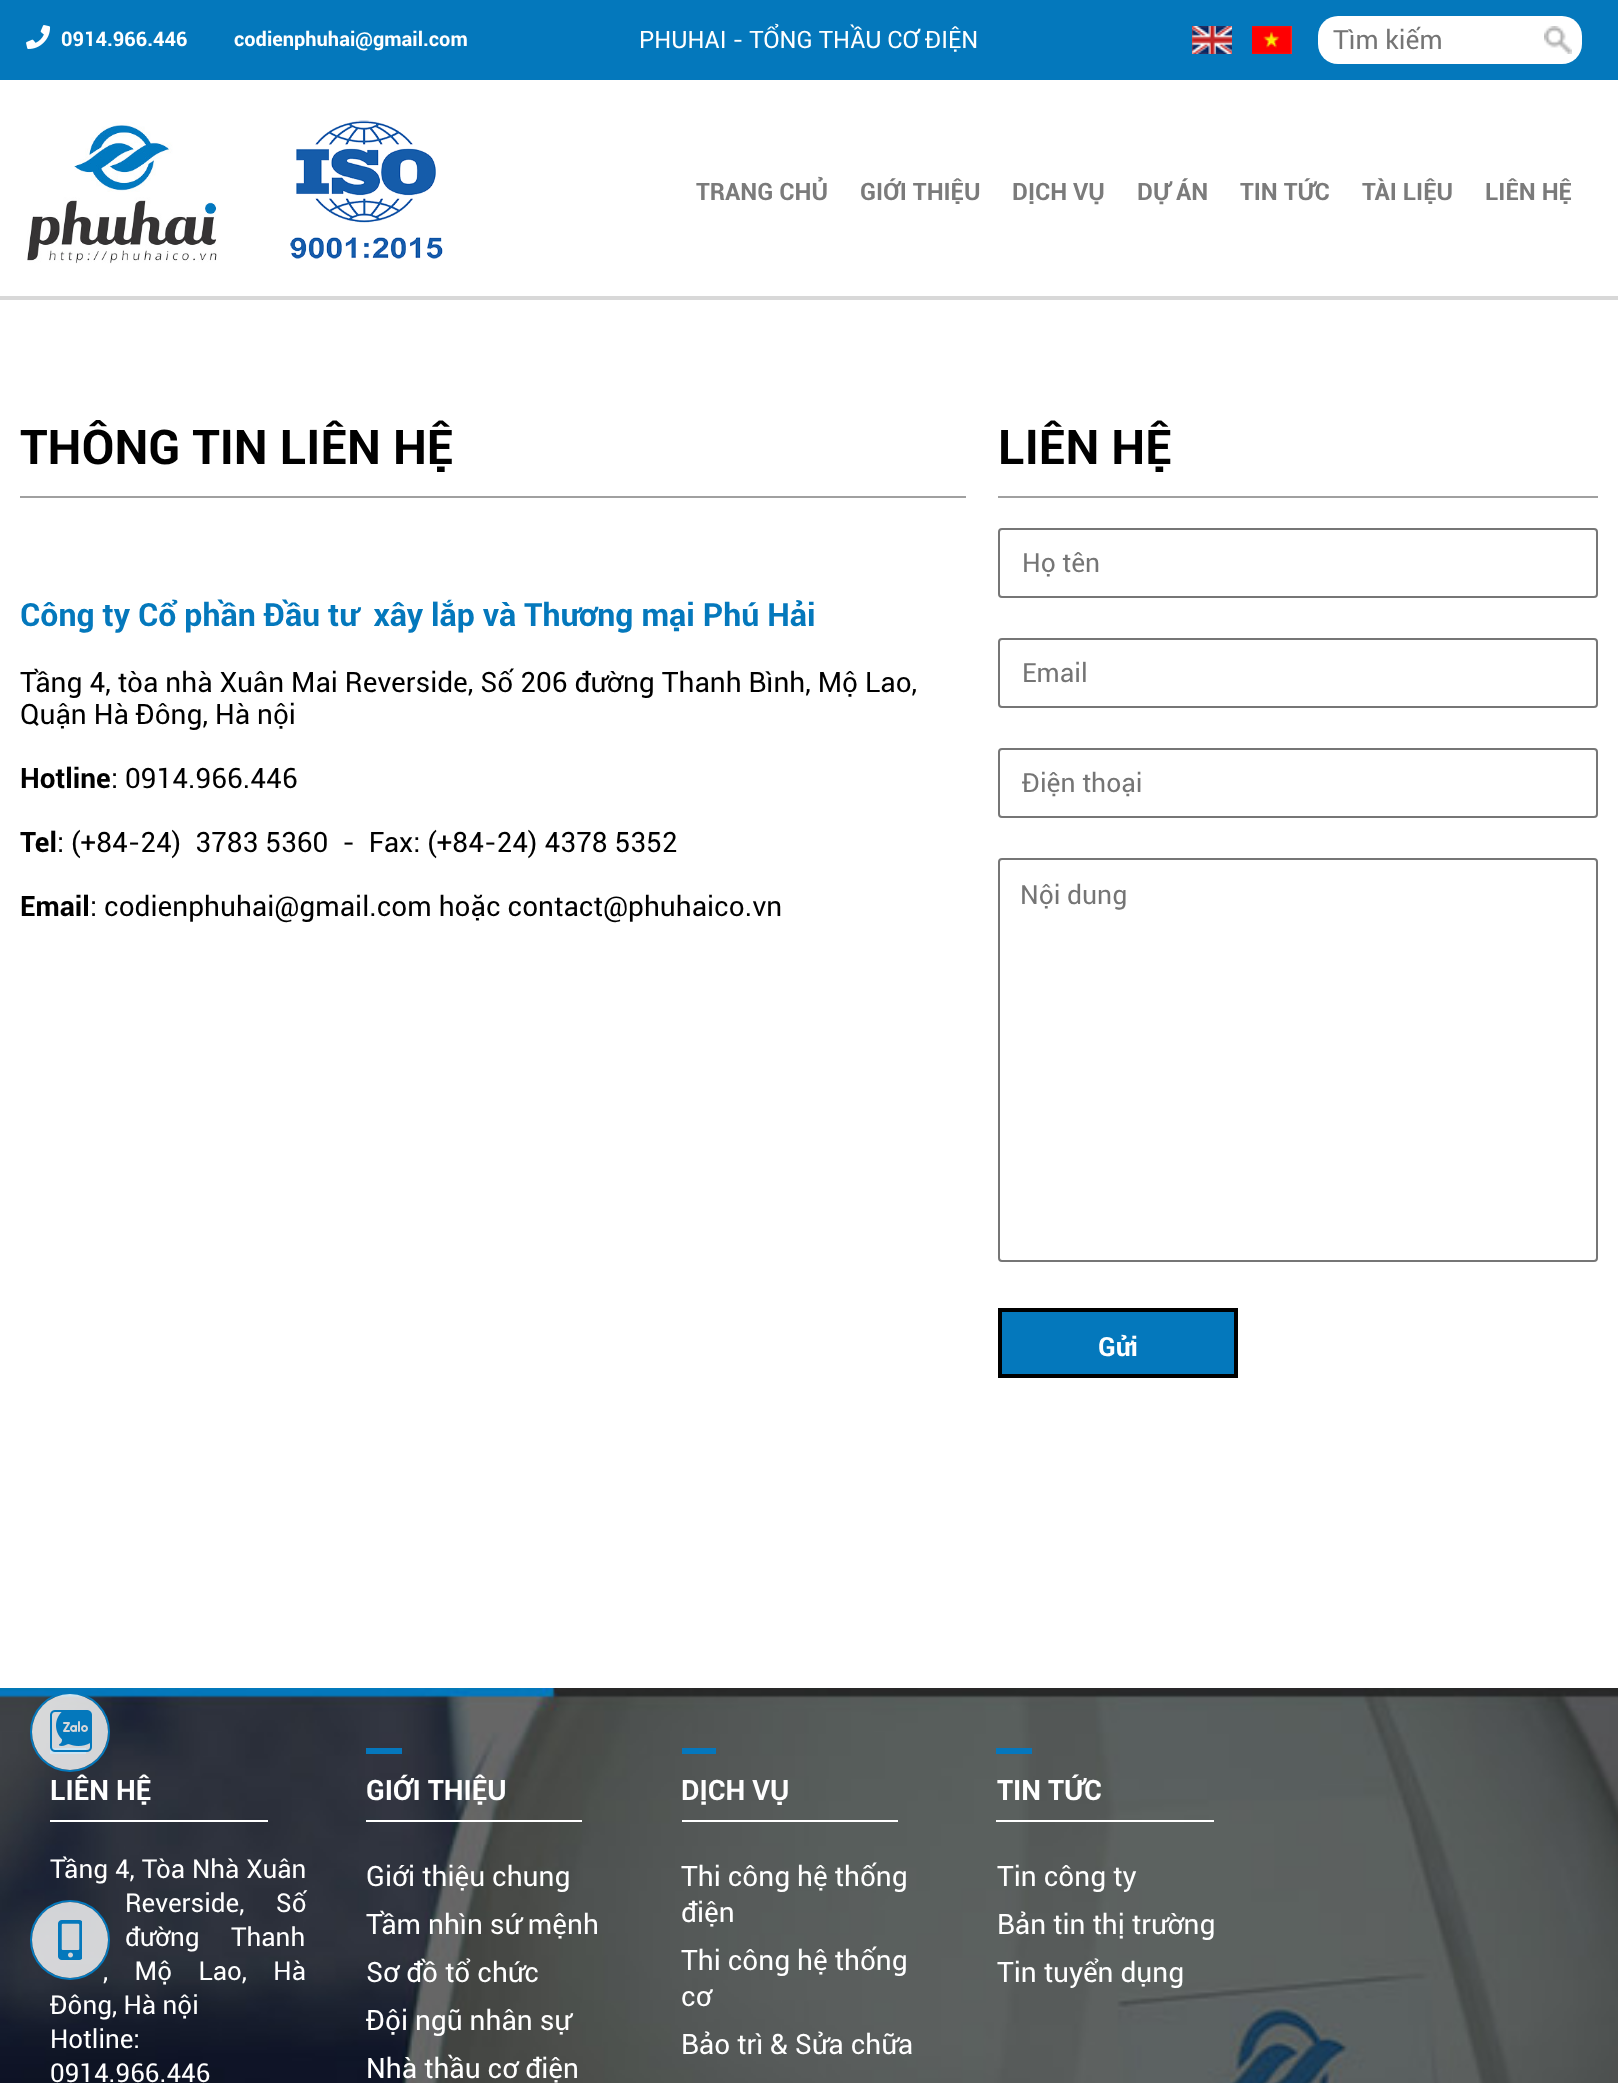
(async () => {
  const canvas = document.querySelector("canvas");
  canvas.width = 1618;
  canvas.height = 2083;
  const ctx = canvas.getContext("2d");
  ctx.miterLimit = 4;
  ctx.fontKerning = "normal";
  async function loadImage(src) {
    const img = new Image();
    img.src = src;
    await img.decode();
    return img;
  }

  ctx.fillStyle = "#ffffff";
  ctx.fillRect(0, 0, 1618, 2083);
  ctx.fillStyle = "#0478bc";
  ctx.fillRect(0, 0, 1618, 80);
  ctx.drawImage(await loadImage("img/1.png"), 26, 25, 25, 24);
  ctx.drawImage(await loadImage("img/2.png"), 1192, 26, 40, 28);
  ctx.drawImage(await loadImage("img/3.png"), 1252, 26, 40, 28);
  ctx.fillStyle = "#ffffff";
  ctx.beginPath();
  ctx.roundRect(1318, 16, 264, 48, 20);
  ctx.fill();
  ctx.drawImage(await loadImage("img/4.png"), 1544, 26, 28, 28);
  ctx.fillStyle = "#d8d8d8";
  ctx.fillRect(0, 296, 1618, 4);
  ctx.drawImage(await loadImage("img/5.png"), 27, 122, 190, 142);
  ctx.drawImage(await loadImage("img/6.png"), 290, 120, 153, 139);
  ctx.fillStyle = "#a0a0a0";
  ctx.fillRect(20, 496, 946, 2);
  ctx.fillRect(998, 496, 600, 2);
  ctx.beginPath();
  ctx.roundRect(999, 529, 598, 68, 3);
  ctx.strokeStyle = "#767676";
  ctx.lineWidth = 2;
  ctx.stroke();
  ctx.beginPath();
  ctx.roundRect(999, 639, 598, 68, 3);
  ctx.stroke();
  ctx.beginPath();
  ctx.roundRect(999, 749, 598, 68, 3);
  ctx.stroke();
  ctx.beginPath();
  ctx.roundRect(999, 859, 598, 402, 3);
  ctx.stroke();
  ctx.fillStyle = "#0478bc";
  ctx.beginPath();
  ctx.rect(1000, 1310, 236, 66);
  ctx.fill();
  ctx.strokeStyle = "#000000";
  ctx.lineWidth = 4;
  ctx.stroke();
  ctx.drawImage(await loadImage("img/7.png"), 0, 1688, 1618, 395);
  ctx.fillStyle = "#0577bd";
  ctx.fillRect(50, 1748, 36, 6);
  ctx.beginPath();
  ctx.arc(70, 1732, 39, 0, Math.PI * 2);
  ctx.strokeStyle = "#0478bc";
  ctx.lineWidth = 2;
  ctx.stroke();
  ctx.fillStyle = "rgba(255, 255, 255, 0.8)";
  ctx.beginPath();
  ctx.arc(70, 1732, 38, 0, Math.PI * 2);
  ctx.fill();
  ctx.drawImage(await loadImage("img/8.png"), 50, 1710, 42, 42);
  for (const [x, y, w, h, color] of [
    [50, 1820, 218, 2, "#ffffff"],
    [366, 1748, 36, 6, "#0577bd"],
    [366, 1820, 216, 2, "#ffffff"],
    [682, 1748, 34, 6, "#0577bd"],
    [682, 1820, 216, 2, "#ffffff"],
    [996, 1748, 36, 6, "#0577bd"],
    [996, 1820, 218, 2, "#ffffff"],
  ]) {
    ctx.fillStyle = color;
    ctx.fillRect(x, y, w, h);
  }
  ctx.font = "bold 20px Roboto";
  ctx.fillText("0914.966.446", 61, 46);
  ctx.fillText("codienphuhai@gmail.com", 234, 46);
  ctx.font = "24px Roboto";
  ctx.fillText("PHUHAI - TỔNG THẦU CƠ ĐIỆN", 639, 48);
  ctx.font = "26.5px Roboto";
  ctx.fillStyle = "#757575";
  ctx.fillText("Tìm kiếm", 1333, 49);
  ctx.font = "bold 24px Roboto";
  ctx.fillStyle = "#7b7b7b";
  for (const [text, x, y] of [
    ["TRANG CHỦ", 696, 200],
    ["GIỚI THIỆU", 860, 200],
    ["DỊCH VỤ", 1012, 200],
    ["DỰ ÁN", 1137, 200],
    ["TIN TỨC", 1240, 200],
    ["TÀI LIỆU", 1362, 200],
    ["LIÊN HỆ", 1485, 200],
  ]) {
    ctx.fillText(text, x, y);
  }
  ctx.font = "bold 48px Roboto";
  ctx.fillStyle = "#000000";
  ctx.fillText("THÔNG TIN LIÊN HỆ", 20, 464);
  ctx.font = "bold 32px Roboto";
  ctx.fillStyle = "#0478bc";
  ctx.fillText("Công ty Cổ phần Đầu tư  xây lắp và Thương mại Phú Hải", 20, 626);
  ctx.font = "28px Roboto";
  ctx.fillStyle = "#000000";
  ctx.fillText("Tầng 4, tòa nhà Xuân Mai Reverside, Số 206 đường Thanh Bình, Mộ Lao,", 20, 692);
  ctx.fillText("Quận Hà Đông, Hà nội", 20, 724);
  ctx.font = "bold 28px Roboto";
  ctx.fillText("Hotline", 20, 788);
  ctx.font = "28px Roboto";
  ctx.fillText(": 0914.966.446", 111, 788);
  ctx.font = "bold 28px Roboto";
  ctx.fillText("Tel", 20, 852);
  ctx.font = "28px Roboto";
  ctx.fillText(": (+84-24)  3783 5360  -  Fax: (+84-24) 4378 5352", 57, 852);
  ctx.font = "bold 28px Roboto";
  ctx.fillText("Email", 20, 916);
  ctx.font = "28px Roboto";
  ctx.fillText(": codienphuhai@gmail.com hoặc contact@phuhaico.vn", 90, 916);
  ctx.font = "bold 48px Roboto";
  ctx.fillText("LIÊN HỆ", 998, 464);
  ctx.font = "26.5px Roboto";
  ctx.fillStyle = "#757575";
  for (const [text, x, y] of [
    ["Họ tên", 1022, 572],
    ["Email", 1022, 682],
    ["Điện thoại", 1022, 792],
    ["Nội dung", 1020, 904],
  ]) {
    ctx.fillText(text, x, y);
  }
  ctx.font = "bold 26.5px Roboto";
  ctx.fillStyle = "#ffffff";
  ctx.fillText("Gửi", 1098, 1356);
  ctx.font = "bold 28px Roboto";
  ctx.fillText("LIÊN HỆ", 50, 1800);
  ctx.wordSpacing = "0.5px";
  ctx.font = "26px Roboto";
  ctx.fillText("Tầng 4, Tòa Nhà Xuân", 50, 1878);
  ctx.wordSpacing = "25px";
  ctx.fillText("Reverside, Số", 125, 1912);
  ctx.fillText("đường Thanh", 125, 1946);
  ctx.wordSpacing = "20px";
  ctx.fillText(", Mộ Lao, Hà", 103, 1980);
  ctx.wordSpacing = "0px";
  for (const [text, x, y] of [
    ["Đông, Hà nội", 50, 2014],
    ["Hotline:", 50, 2048],
    ["0914.966.446", 50, 2082],
  ]) {
    ctx.fillText(text, x, y);
  }
  ctx.font = "bold 28px Roboto";
  ctx.fillText("GIỚI THIỆU", 366, 1800);
  ctx.font = "28px Roboto";
  for (const [text, x, y] of [
    ["Giới thiệu chung", 366, 1886],
    ["Tầm nhìn sứ mệnh", 366, 1934],
    ["Sơ đồ tổ chức", 366, 1982],
    ["Đội ngũ nhân sự", 366, 2030],
    ["Nhà thầu cơ điện", 366, 2078],
  ]) {
    ctx.fillText(text, x, y);
  }
  ctx.font = "bold 28px Roboto";
  ctx.fillText("DỊCH VỤ", 681, 1800);
  ctx.font = "28px Roboto";
  for (const [text, x, y] of [
    ["Thi công hệ thống", 681, 1886],
    ["điện", 681, 1922],
    ["Thi công hệ thống", 681, 1970],
    ["cơ", 681, 2006],
    ["Bảo trì & Sửa chữa", 681, 2054],
  ]) {
    ctx.fillText(text, x, y);
  }
  ctx.font = "bold 28px Roboto";
  ctx.fillText("TIN TỨC", 997, 1800);
  ctx.font = "28px Roboto";
  for (const [text, x, y] of [
    ["Tin công ty", 997, 1886],
    ["Bản tin thị trường", 997, 1934],
    ["Tin tuyển dụng", 997, 1982],
  ]) {
    ctx.fillText(text, x, y);
  }
  ctx.beginPath();
  ctx.arc(70, 1940, 39, 0, Math.PI * 2);
  ctx.stroke();
  ctx.fillStyle = "rgba(255, 255, 255, 0.8)";
  ctx.beginPath();
  ctx.arc(70, 1940, 38, 0, Math.PI * 2);
  ctx.fill();
  ctx.drawImage(await loadImage("img/9.png"), 58, 1920, 24, 40);
})();
